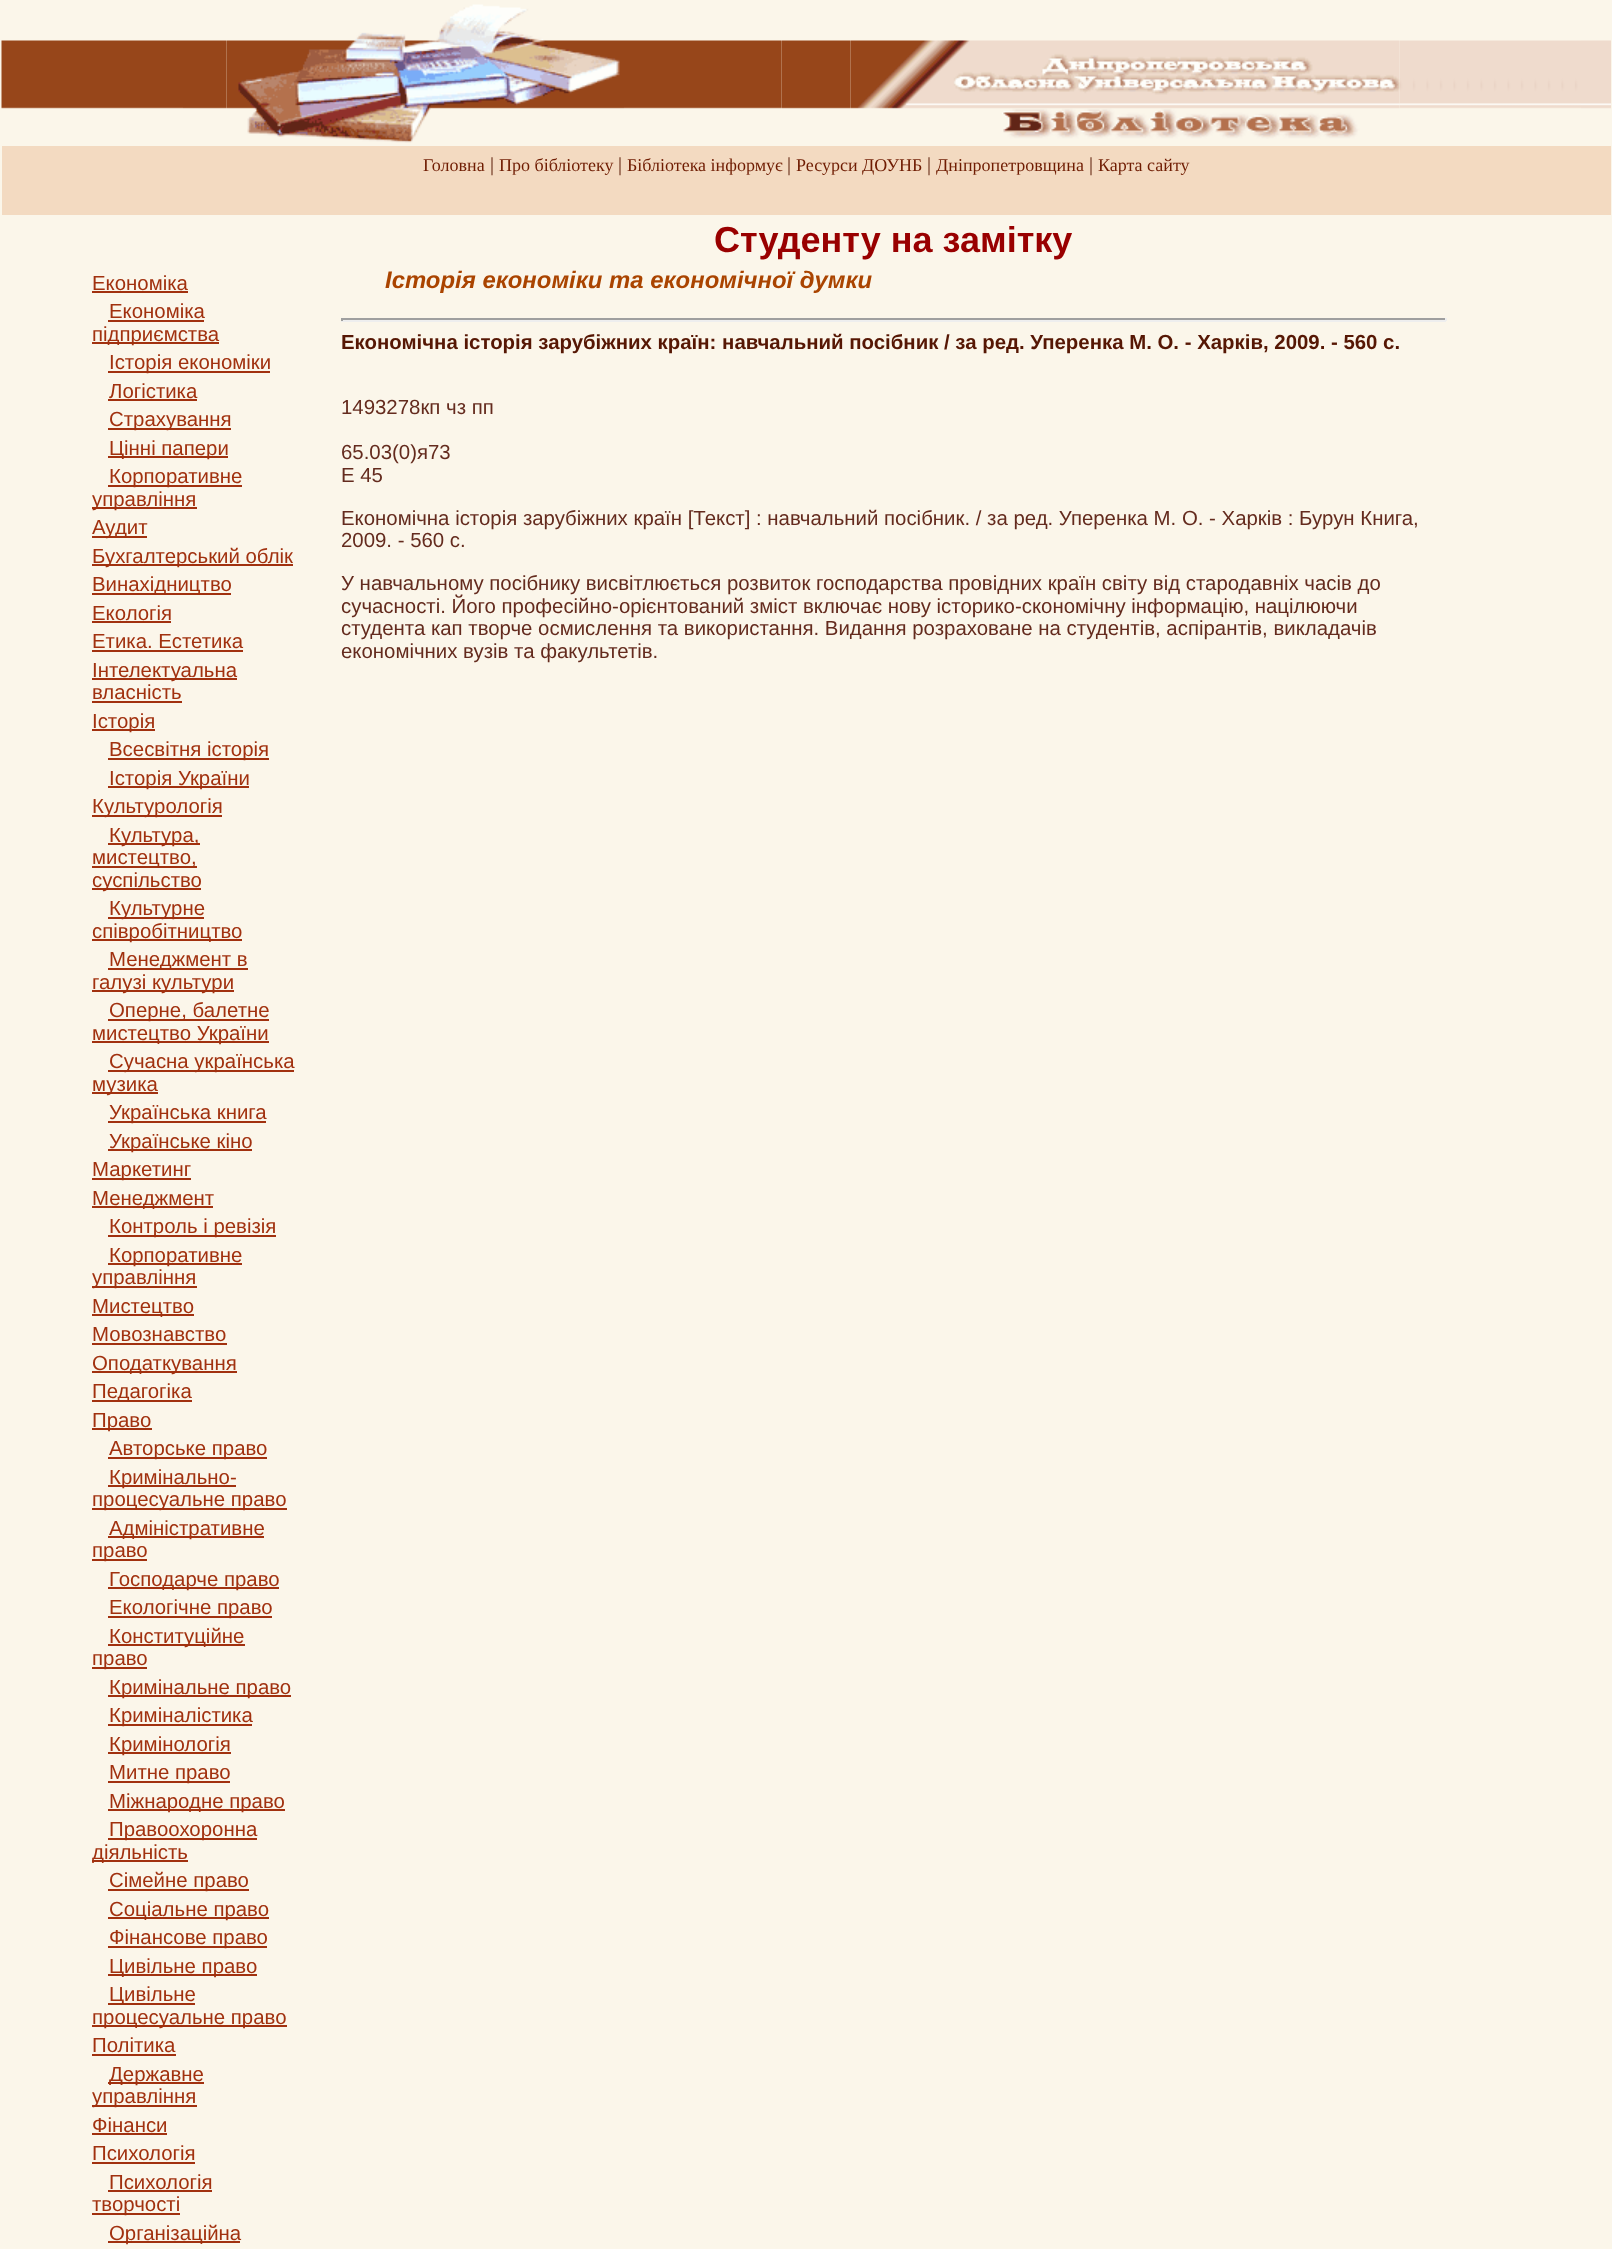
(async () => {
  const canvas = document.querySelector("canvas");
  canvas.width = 1612;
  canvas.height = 2249;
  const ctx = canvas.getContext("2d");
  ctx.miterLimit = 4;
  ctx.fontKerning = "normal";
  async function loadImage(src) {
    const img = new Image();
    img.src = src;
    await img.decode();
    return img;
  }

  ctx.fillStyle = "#fbf6ea";
  ctx.fillRect(0, 0, 1612, 2249);
  ctx.drawImage(await loadImage("img/1.png"), 1, 40, 182, 69);
  ctx.drawImage(await loadImage("img/2.png"), 183, 40, 44, 69);
  ctx.drawImage(await loadImage("img/3.png"), 226, 4, 398, 139);
  ctx.drawImage(await loadImage("img/4.png"), 624, 40, 158, 69);
  ctx.drawImage(await loadImage("img/5.png"), 781, 40, 70, 69);
  ctx.drawImage(await loadImage("img/7.png"), 1399, 40, 182, 69);
  ctx.drawImage(await loadImage("img/6.png"), 850, 40, 550, 99);
  ctx.drawImage(await loadImage("img/8.png"), 1581, 40, 30, 69);
  for (const [x, y, w, h, color] of [
    [2, 146, 1609, 69, "#f3dac1"],
    [92, 291, 96, 2, "#a1310f"],
    [108, 320, 96, 2, "#a1310f"],
    [92, 342, 127, 2, "#a1310f"],
    [108, 371, 162, 2, "#a1310f"],
    [108, 399, 89, 2, "#a1310f"],
    [108, 428, 123, 2, "#a1310f"],
    [108, 456, 120, 2, "#a1310f"],
    [108, 485, 134, 2, "#a1310f"],
    [92, 507, 105, 2, "#a1310f"],
    [92, 536, 55, 2, "#a1310f"],
    [92, 564, 201, 2, "#a1310f"],
    [92, 593, 139, 2, "#a1310f"],
    [92, 621, 79, 2, "#a1310f"],
    [92, 650, 151, 2, "#a1310f"],
    [92, 678, 145, 2, "#a1310f"],
    [92, 701, 90, 2, "#a1310f"],
    [92, 729, 63, 2, "#a1310f"],
    [108, 758, 161, 2, "#a1310f"],
    [108, 786, 141, 2, "#a1310f"],
    [92, 815, 130, 2, "#a1310f"],
    [108, 843, 92, 2, "#a1310f"],
    [92, 866, 105, 2, "#a1310f"],
    [92, 888, 109, 2, "#a1310f"],
    [108, 917, 96, 2, "#a1310f"],
    [92, 939, 150, 2, "#a1310f"],
    [108, 968, 140, 2, "#a1310f"],
    [92, 990, 142, 2, "#a1310f"],
    [108, 1019, 161, 2, "#a1310f"],
    [92, 1041, 177, 2, "#a1310f"],
    [108, 1070, 186, 2, "#a1310f"],
    [92, 1092, 66, 2, "#a1310f"],
    [108, 1121, 158, 2, "#a1310f"],
    [108, 1149, 144, 2, "#a1310f"],
    [92, 1178, 99, 2, "#a1310f"],
    [92, 1206, 121, 2, "#a1310f"],
    [108, 1235, 168, 2, "#a1310f"],
    [108, 1263, 134, 2, "#a1310f"],
    [92, 1286, 105, 2, "#a1310f"],
    [92, 1314, 102, 2, "#a1310f"],
    [92, 1343, 135, 2, "#a1310f"],
    [92, 1371, 145, 2, "#a1310f"],
    [92, 1400, 100, 2, "#a1310f"],
    [92, 1428, 60, 2, "#a1310f"],
    [108, 1457, 159, 2, "#a1310f"],
    [108, 1485, 128, 2, "#a1310f"],
    [92, 1508, 195, 2, "#a1310f"],
    [108, 1536, 156, 2, "#a1310f"],
    [92, 1559, 55, 2, "#a1310f"],
    [108, 1587, 171, 2, "#a1310f"],
    [108, 1616, 164, 2, "#a1310f"],
    [108, 1644, 137, 2, "#a1310f"],
    [92, 1667, 55, 2, "#a1310f"],
    [108, 1695, 183, 2, "#a1310f"],
    [108, 1724, 144, 2, "#a1310f"],
    [108, 1752, 123, 2, "#a1310f"],
    [108, 1781, 122, 2, "#a1310f"],
    [108, 1809, 177, 2, "#a1310f"],
    [108, 1838, 149, 2, "#a1310f"],
    [92, 1860, 96, 2, "#a1310f"],
    [108, 1889, 141, 2, "#a1310f"],
    [108, 1917, 161, 2, "#a1310f"],
    [108, 1946, 159, 2, "#a1310f"],
    [108, 1974, 149, 2, "#a1310f"],
    [108, 2003, 87, 2, "#a1310f"],
    [92, 2025, 195, 2, "#a1310f"],
    [92, 2054, 84, 2, "#a1310f"],
    [108, 2082, 96, 2, "#a1310f"],
    [92, 2105, 105, 2, "#a1310f"],
    [92, 2133, 75, 2, "#a1310f"],
    [92, 2162, 103, 2, "#a1310f"],
    [108, 2190, 104, 2, "#a1310f"],
    [92, 2213, 88, 2, "#a1310f"],
    [108, 2241, 132, 2, "#a1310f"],
    [341, 318, 1105, 2, "#9f9f9f"],
    [1445, 318, 2, 3, "#eeeeee"],
    [341, 320, 1105, 2, "#eeeeee"],
    [341, 318, 2, 3, "#9f9f9f"],
  ]) {
    ctx.fillStyle = color;
    ctx.fillRect(x, y, w, h);
  }
  ctx.font = "18px Liberation Serif";
  ctx.fillStyle = "#6f1c02";
  ctx.fillText("Головна", 423, 171);
  ctx.font = "20px Liberation Serif";
  ctx.fillStyle = "#561704";
  ctx.fillText("|", 490, 171);
  ctx.font = "18px Liberation Serif";
  ctx.fillStyle = "#6f1c02";
  ctx.fillText("Про бiблiотеку", 499, 171);
  ctx.font = "20px Liberation Serif";
  ctx.fillStyle = "#561704";
  ctx.fillText("|", 618, 171);
  ctx.font = "18px Liberation Serif";
  ctx.fillStyle = "#6f1c02";
  ctx.fillText("Бiблiотека iнформує", 627, 171);
  ctx.font = "20px Liberation Serif";
  ctx.fillStyle = "#561704";
  ctx.fillText("|", 787, 171);
  ctx.font = "18px Liberation Serif";
  ctx.fillStyle = "#6f1c02";
  ctx.fillText("Ресурси ДОУНБ", 796, 171);
  ctx.font = "20px Liberation Serif";
  ctx.fillStyle = "#561704";
  ctx.fillText("|", 927, 171);
  ctx.font = "18px Liberation Serif";
  ctx.fillStyle = "#6f1c02";
  ctx.fillText("Днiпропетровщина", 936, 171);
  ctx.font = "20px Liberation Serif";
  ctx.fillStyle = "#561704";
  ctx.fillText("|", 1089, 171);
  ctx.font = "18px Liberation Serif";
  ctx.fillStyle = "#6f1c02";
  ctx.fillText("Карта сайту", 1098, 171);
  ctx.font = "bold 36px Liberation Sans";
  ctx.fillStyle = "#990000";
  ctx.fillText("Студенту на замiтку", 714, 252);
  ctx.font = "20.4px Liberation Sans";
  ctx.fillStyle = "#a1310f";
  for (const [text, x, y] of [
    ["Економіка", 92, 290],
    ["Економіка", 109, 318],
    ["підприємства", 92, 341],
    ["Історія економіки", 109, 369],
    ["Логістика", 109, 398],
    ["Страхування", 109, 426],
    ["Цінні папери", 109, 455],
    ["Корпоративне", 109, 483],
    ["управління", 92, 506],
    ["Аудит", 92, 534],
    ["Бухгалтерський облік", 92, 563],
    ["Винахідництво", 92, 591],
    ["Екологія", 92, 620],
    ["Етика. Естетика", 92, 648],
    ["Інтелектуальна", 92, 677],
    ["власність", 92, 699],
    ["Історія", 92, 728],
    ["Всесвітня історія", 109, 756],
    ["Історія України", 109, 785],
    ["Культурологія", 92, 813],
    ["Культура,", 109, 842],
    ["мистецтво,", 92, 864],
    ["суспільство", 92, 887],
    ["Культурне", 109, 915],
    ["співробітництво", 92, 938],
    ["Менеджмент в", 109, 966],
    ["галузі культури", 92, 989],
    ["Оперне, балетне", 109, 1017],
    ["мистецтво України", 92, 1040],
    ["Сучасна українська", 109, 1068],
    ["музика", 92, 1091],
    ["Українська книга", 109, 1119],
    ["Українське кіно", 109, 1148],
    ["Маркетинг", 92, 1176],
    ["Менеджмент", 92, 1205],
    ["Контроль і ревізія", 109, 1233],
    ["Корпоративне", 109, 1262],
    ["управління", 92, 1284],
    ["Мистецтво", 92, 1313],
    ["Мовознавство", 92, 1341],
    ["Оподаткування", 92, 1370],
    ["Педагогіка", 92, 1398],
    ["Право", 92, 1427],
    ["Авторське право", 109, 1455],
    ["Кримінально-", 109, 1484],
    ["процесуальне право", 92, 1506],
    ["Адміністративне", 109, 1535],
    ["право", 92, 1557],
    ["Господарче право", 109, 1586],
    ["Екологічне право", 109, 1614],
    ["Конституційне", 109, 1643],
    ["право", 92, 1665],
    ["Кримінальне право", 109, 1694],
    ["Криміналістика", 109, 1722],
    ["Кримінологія", 109, 1751],
    ["Митне право", 109, 1779],
    ["Міжнародне право", 109, 1808],
    ["Правоохоронна", 109, 1836],
    ["діяльність", 92, 1859],
    ["Сімейне право", 109, 1887],
    ["Соціальне право", 109, 1916],
    ["Фінансове право", 109, 1944],
    ["Цивільне право", 109, 1973],
    ["Цивільне", 109, 2001],
    ["процесуальне право", 92, 2024],
    ["Політика", 92, 2052],
    ["Державне", 109, 2081],
    ["управління", 92, 2103],
    ["Фінанси", 92, 2132],
    ["Психологія", 92, 2160],
    ["Психологія", 109, 2189],
    ["творчості", 92, 2211],
    ["Організаційна", 109, 2240],
  ]) {
    ctx.fillText(text, x, y);
  }
  ctx.font = "italic bold 23.9px Liberation Sans";
  ctx.fillStyle = "#aa4400";
  ctx.fillText("Історія економіки та економічної думки", 385, 288);
  ctx.font = "bold 20.4px Liberation Sans";
  ctx.fillStyle = "#561704";
  ctx.fillText("Економічна історія зарубіжних країн: навчальний посібник / за ред. Уперенка М. О. - Харків, 2009. - 560 с.", 341, 349);
  ctx.font = "20.4px Liberation Sans";
  ctx.fillStyle = "#642b1e";
  for (const [text, x, y] of [
    ["1493278кп чз пп", 341, 414],
    ["65.03(0)я73", 341, 459],
    ["Е 45", 341, 482],
    ["Економічна історія зарубіжних країн [Текст] : навчальний посібник. / за ред. Уперенка М. О. - Харків : Бурун Книга,", 341, 525],
    ["2009. - 560 с.", 341, 547],
    ["У навчальному посібнику висвітлюється розвиток господарства провідних країн світу від стародавніх часів до", 341, 590],
    ["сучасності. Його професійно-орієнтований зміст включає нову історико-скономічну інформацію, націлюючи", 341, 613],
    ["студента кап творче осмислення та використання. Видання розраховане на студентів, аспірантів, викладачів", 341, 635],
    ["економічних вузів та факультетів.", 341, 658],
  ]) {
    ctx.fillText(text, x, y);
  }
})();
